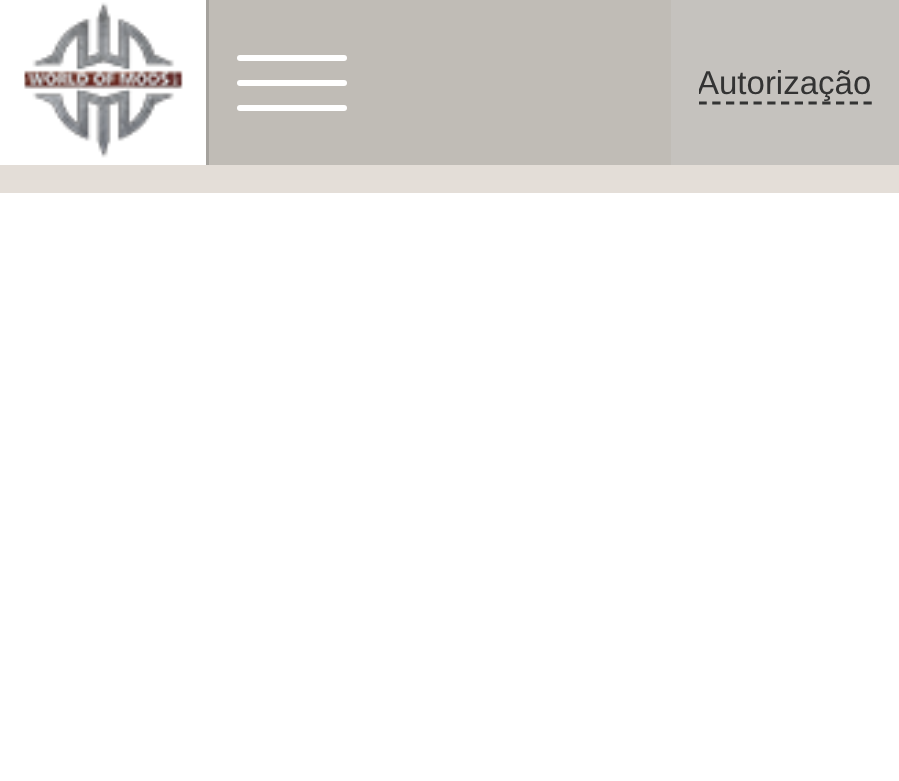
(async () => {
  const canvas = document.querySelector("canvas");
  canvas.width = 899;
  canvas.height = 781;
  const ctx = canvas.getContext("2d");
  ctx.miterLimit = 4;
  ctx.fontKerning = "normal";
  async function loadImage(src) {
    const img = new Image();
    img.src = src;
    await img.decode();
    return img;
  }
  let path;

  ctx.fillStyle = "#ffffff";
  ctx.fillRect(0, 0, 899, 781);
  ctx.drawImage(await loadImage("img/1.png"), 0, 165, 899, 28);
  ctx.fillStyle = "#a5a29d";
  ctx.fillRect(206, 0, 3, 165);
  ctx.drawImage(await loadImage("img/2.png"), 24, 2, 159, 156);
  ctx.fillStyle = "#c0bcb6";
  ctx.fillRect(209, 0, 462, 165);
  ctx.fillStyle = "#ffffff";
  ctx.beginPath();
  ctx.roundRect(237, 55, 110, 6, 3);
  ctx.fill();
  ctx.beginPath();
  ctx.roundRect(237, 80, 110, 6, 3);
  ctx.fill();
  ctx.beginPath();
  ctx.roundRect(237, 105, 110, 6, 3);
  ctx.fill();
  ctx.fillStyle = "#c5c2be";
  ctx.fillRect(671, 0, 228, 165);
  ctx.save();
  ctx.beginPath();
  ctx.rect(699, 28, 173, 110);
  ctx.clip();
  path = new Path2D("M698.5 103H872");
  ctx.strokeStyle = "#333333";
  ctx.lineWidth = 2.8;
  ctx.setLineDash([8.25, 5.5]);
  ctx.stroke(path);
  ctx.font = "33px Liberation Sans";
  ctx.fillStyle = "#333333";
  ctx.fillText("Autorização", 697, 94);
  ctx.restore();
})();
